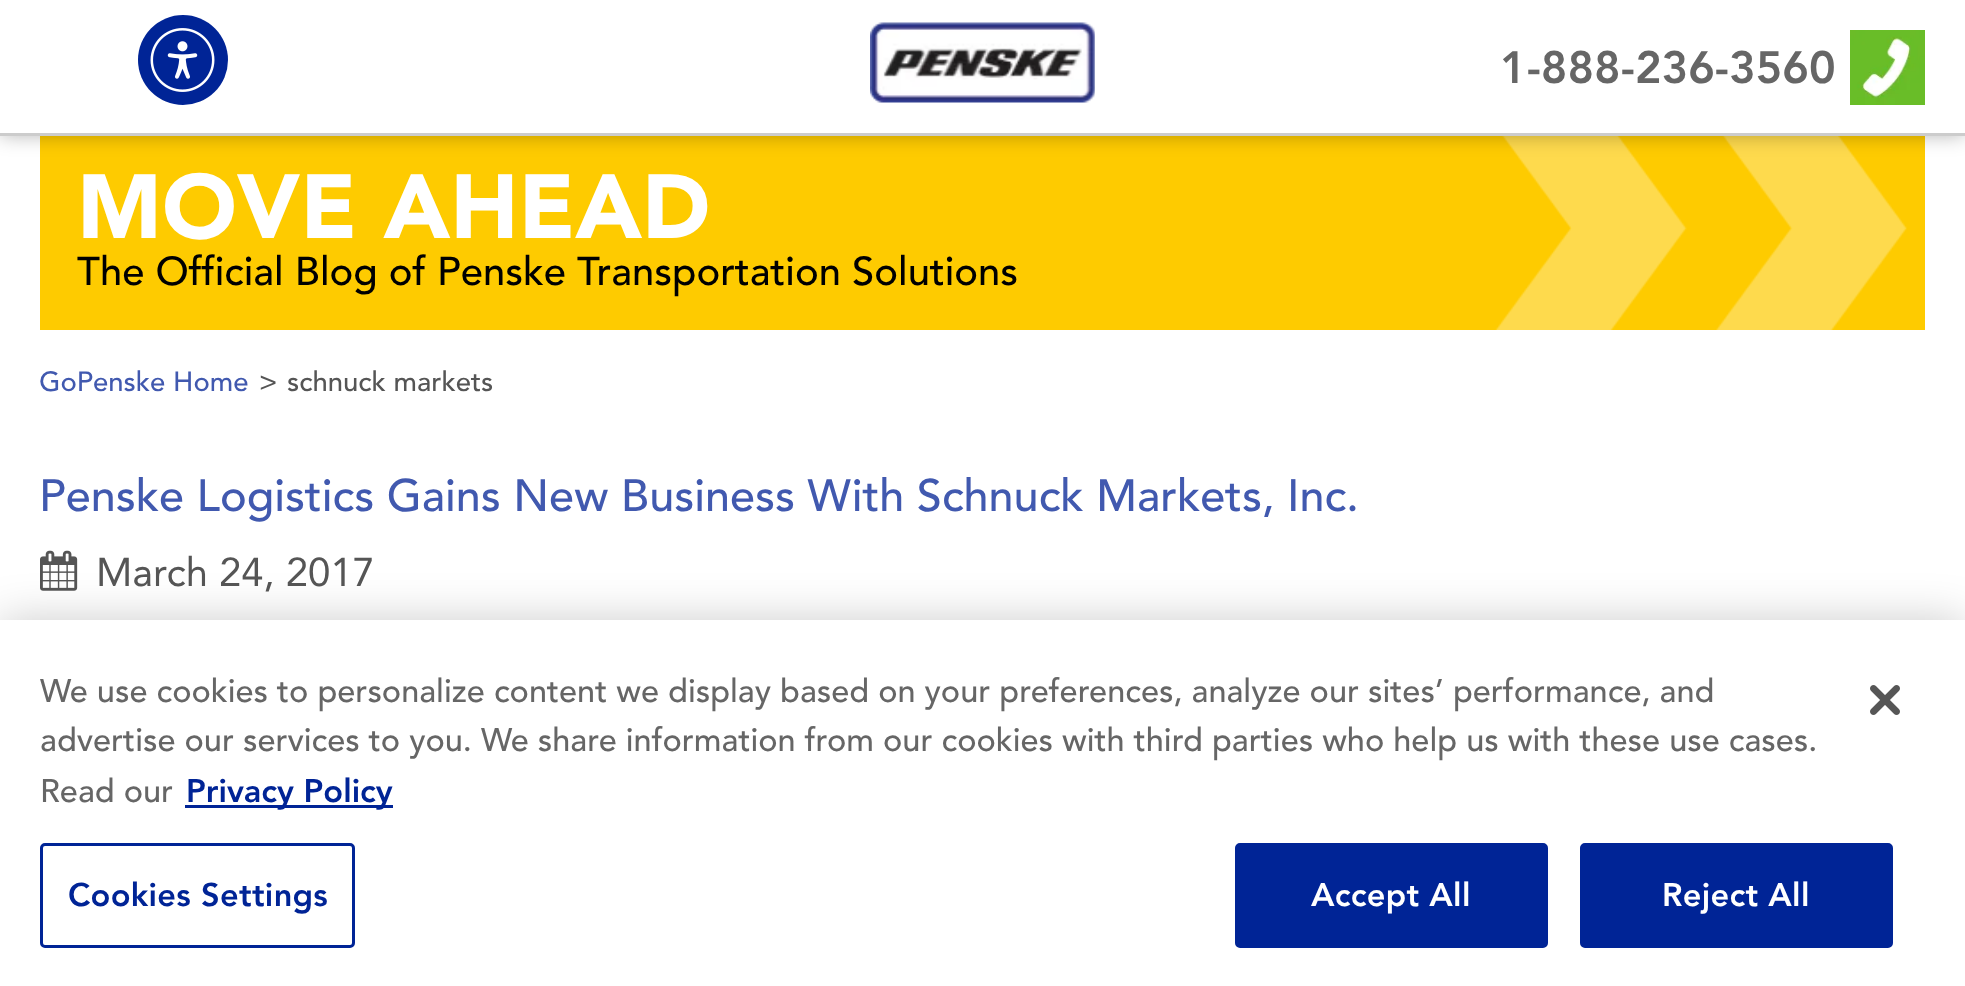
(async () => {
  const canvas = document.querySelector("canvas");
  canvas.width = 1965;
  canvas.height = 986;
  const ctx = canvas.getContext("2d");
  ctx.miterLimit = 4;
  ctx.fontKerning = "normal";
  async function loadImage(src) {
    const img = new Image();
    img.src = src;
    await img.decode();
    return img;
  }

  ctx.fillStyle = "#ffffff";
  ctx.fillRect(0, 0, 1965, 986);
  ctx.fillStyle = "#fecb00";
  ctx.fillRect(40, 136, 1885, 194);
  ctx.drawImage(await loadImage("img/4.png"), 1495, 136, 412, 194);
  ctx.fillStyle = "rgba(0, 0, 0, 0.3)";
  ctx.filter = "blur(10px)";
  ctx.beginPath();
  ctx.rect(0, 0, 1965, 135);
  ctx.fill();
  ctx.filter = "none";
  ctx.fillStyle = "#ffffff";
  ctx.fillRect(0, 0, 1965, 133);
  ctx.fillStyle = "#002496";
  ctx.beginPath();
  ctx.arc(183, 60, 45, 0, Math.PI * 2);
  ctx.fill();
  ctx.drawImage(await loadImage("img/1.png"), 150, 28, 65, 64);
  ctx.fillStyle = "#cccccc";
  ctx.fillRect(0, 133, 1965, 3);
  ctx.drawImage(await loadImage("img/2.png"), 870, 22, 225, 81);
  ctx.drawImage(await loadImage("img/3.png"), 1850, 30, 75, 75);
  ctx.drawImage(await loadImage("img/5.png"), 40, 550, 38, 41);
  ctx.fillStyle = "rgba(0, 0, 0, 0.2)";
  ctx.filter = "blur(22.5px)";
  ctx.beginPath();
  ctx.rect(0, 620, 1965, 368);
  ctx.fill();
  ctx.filter = "none";
  ctx.fillStyle = "#ffffff";
  ctx.fillRect(0, 620, 1965, 366);
  ctx.fillStyle = "#002496";
  ctx.fillRect(185, 805, 208, 3);
  ctx.beginPath();
  ctx.roundRect(41.5, 844.5, 312, 102, 3.5);
  ctx.strokeStyle = "#002496";
  ctx.lineWidth = 3;
  ctx.stroke();
  ctx.beginPath();
  ctx.roundRect(1236.5, 844.5, 310, 102, 3.5);
  ctx.fill();
  ctx.stroke();
  ctx.beginPath();
  ctx.roundRect(1581.5, 844.5, 310, 102, 3.5);
  ctx.fill();
  ctx.stroke();
  ctx.drawImage(await loadImage("img/6.png"), 1870, 685, 30, 30);
  ctx.font = "900 45px 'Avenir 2'";
  ctx.fillStyle = "#666666";
  ctx.fillText("1-888-236-3560", 1500, 83);
  ctx.font = "900 90px Avenir";
  ctx.fillStyle = "#ffffff";
  ctx.fillText("MOVE AHEAD", 77, 238);
  ctx.font = "500 40px Avenir";
  ctx.fillStyle = "#000000";
  ctx.fillText("The Official Blog of Penske Transportation Solutions", 77, 285);
  ctx.font = "500 27.5px Avenir";
  ctx.fillStyle = "#4159af";
  ctx.fillText("GoPenske Home", 39, 391);
  ctx.fillStyle = "#555555";
  ctx.fillText(">", 259, 391);
  ctx.fillText("schnuck markets", 287, 391);
  ctx.font = "500 45px Avenir";
  ctx.fillStyle = "#4159af";
  ctx.fillText("Penske Logistics Gains New Business With Schnuck Markets, Inc.", 39, 511);
  ctx.font = "40px Avenir";
  ctx.fillStyle = "#555555";
  ctx.fillText("March 24, 2017", 96, 586);
  ctx.font = "500 32.52px Avenir";
  ctx.fillStyle = "#666666";
  for (const [text, x, y] of [
    ["We use cookies to personalize content we display based on your preferences, analyze our sites’ performance, and", 40, 702],
    ["advertise our services to you. We share information from our cookies with third parties who help us with these use cases.", 40, 751],
    ["Read our", 40, 802],
  ]) {
    ctx.fillText(text, x, y);
  }
  ctx.font = "900 32.52px 'Avenir 2'";
  ctx.fillStyle = "#002496";
  ctx.fillText("Privacy Policy", 186, 802);
  ctx.letterSpacing = "0.3px";
  ctx.fillText("Cookies Settings", 68, 906);
  ctx.fillStyle = "#ffffff";
  ctx.fillText("Accept All", 1311, 906);
  ctx.fillText("Reject All", 1662, 906);
})();
